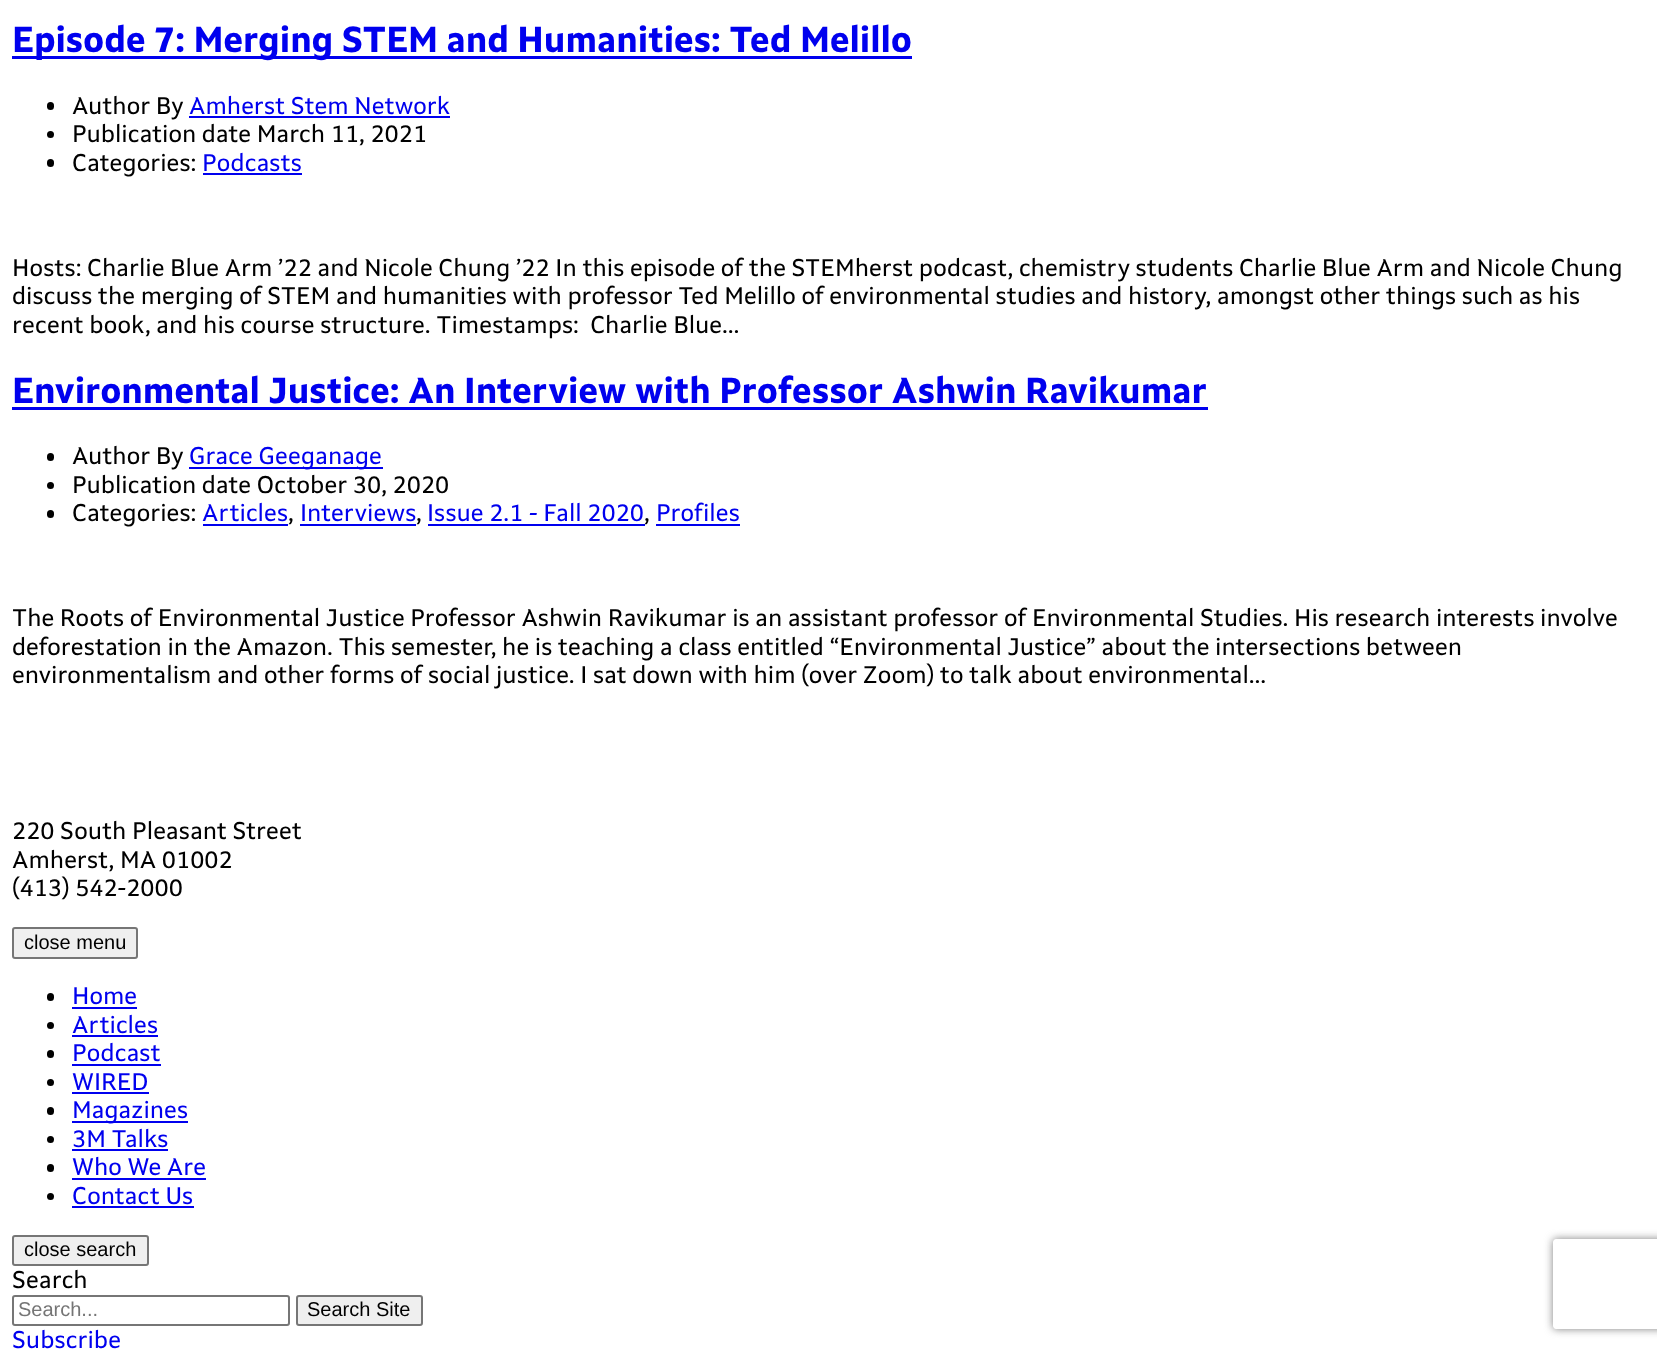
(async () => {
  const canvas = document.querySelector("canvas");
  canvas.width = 1657;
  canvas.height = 1350;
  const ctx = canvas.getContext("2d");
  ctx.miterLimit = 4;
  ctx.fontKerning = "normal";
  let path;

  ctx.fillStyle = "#ffffff";
  ctx.fillRect(0, 0, 1657, 1350);
  ctx.fillStyle = "#0000ee";
  ctx.fillRect(12, 56, 900, 3);
  ctx.fillStyle = "#000000";
  ctx.beginPath();
  ctx.roundRect(47, 102, 7, 8, 3.5);
  ctx.fill();
  ctx.fillStyle = "#0000ee";
  ctx.fillRect(189, 116, 261, 2);
  ctx.fillStyle = "#000000";
  ctx.beginPath();
  ctx.arc(50.5, 134.5, 3.5, 0, Math.PI * 2);
  ctx.fill();
  ctx.beginPath();
  ctx.roundRect(47, 159, 7, 8, 3.5);
  ctx.fill();
  ctx.fillStyle = "#0000ee";
  ctx.fillRect(203, 173, 99, 2);
  ctx.fillRect(12, 407, 1196, 3);
  ctx.fillStyle = "#000000";
  ctx.beginPath();
  ctx.roundRect(47, 453, 7, 8, 3.5);
  ctx.fill();
  ctx.fillStyle = "#0000ee";
  ctx.fillRect(189, 467, 194, 2);
  ctx.fillStyle = "#000000";
  ctx.beginPath();
  ctx.arc(50.5, 485.5, 3.5, 0, Math.PI * 2);
  ctx.fill();
  ctx.beginPath();
  ctx.roundRect(47, 510, 7, 8, 3.5);
  ctx.fill();
  for (const [x, y, w, h, color] of [
    [203, 524, 85, 2, "#0000ee"],
    [300, 524, 116, 2, "#0000ee"],
    [428, 524, 217, 2, "#0000ee"],
    [656, 524, 84, 2, "#0000ee"],
  ]) {
    ctx.fillStyle = color;
    ctx.fillRect(x, y, w, h);
  }
  ctx.fillStyle = "#efefef";
  ctx.beginPath();
  ctx.roundRect(13, 928, 124, 30, 2);
  ctx.fill();
  ctx.strokeStyle = "#767676";
  ctx.lineWidth = 2;
  ctx.stroke();
  ctx.fillStyle = "#000000";
  ctx.beginPath();
  ctx.roundRect(47, 993, 7, 8, 3.5);
  ctx.fill();
  ctx.fillStyle = "#0000ee";
  ctx.fillRect(72, 1007, 65, 2);
  ctx.fillStyle = "#000000";
  ctx.beginPath();
  ctx.arc(50.5, 1025.5, 3.5, 0, Math.PI * 2);
  ctx.fill();
  ctx.fillStyle = "#0000ee";
  ctx.fillRect(72, 1035, 86, 2);
  ctx.fillStyle = "#000000";
  ctx.beginPath();
  ctx.roundRect(47, 1050, 7, 8, 3.5);
  ctx.fill();
  ctx.fillStyle = "#0000ee";
  ctx.fillRect(72, 1064, 89, 2);
  ctx.fillStyle = "#000000";
  ctx.beginPath();
  ctx.arc(50.5, 1082.5, 3.5, 0, Math.PI * 2);
  ctx.fill();
  ctx.fillStyle = "#0000ee";
  ctx.fillRect(72, 1092, 77, 2);
  ctx.fillStyle = "#000000";
  ctx.beginPath();
  ctx.roundRect(47, 1107, 7, 8, 3.5);
  ctx.fill();
  ctx.fillStyle = "#0000ee";
  ctx.fillRect(72, 1121, 116, 2);
  ctx.fillStyle = "#000000";
  ctx.beginPath();
  ctx.arc(50.5, 1139.5, 3.5, 0, Math.PI * 2);
  ctx.fill();
  ctx.fillStyle = "#0000ee";
  ctx.fillRect(72, 1149, 96, 2);
  ctx.fillStyle = "#000000";
  ctx.beginPath();
  ctx.roundRect(47, 1164, 7, 8, 3.5);
  ctx.fill();
  ctx.fillStyle = "#0000ee";
  ctx.fillRect(72, 1178, 134, 2);
  ctx.fillStyle = "#000000";
  ctx.beginPath();
  ctx.arc(50.5, 1196.5, 3.5, 0, Math.PI * 2);
  ctx.fill();
  ctx.fillStyle = "#0000ee";
  ctx.fillRect(72, 1206, 122, 2);
  ctx.fillStyle = "#efefef";
  ctx.beginPath();
  ctx.roundRect(13, 1236, 135, 29, 2);
  ctx.fill();
  ctx.stroke();
  ctx.beginPath();
  ctx.roundRect(13, 1296, 276, 29, 2);
  ctx.stroke();
  ctx.beginPath();
  ctx.roundRect(297, 1296, 125, 29, 2);
  ctx.fill();
  ctx.stroke();
  ctx.save();
  path = new Path2D("M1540 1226H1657V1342H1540ZM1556 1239H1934C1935.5 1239 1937 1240.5 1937 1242V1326C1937 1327.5 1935.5 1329 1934 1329H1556C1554.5 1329 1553 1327.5 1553 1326V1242C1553 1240.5 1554.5 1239 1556 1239Z");
  ctx.clip(path, "evenodd");
  ctx.fillStyle = "#808080";
  ctx.filter = "blur(4px)";
  ctx.beginPath();
  ctx.roundRect(1553, 1239, 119, 90, 3);
  ctx.fill();
  ctx.filter = "none";
  ctx.restore();
  ctx.font = "bold 36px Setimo";
  ctx.fillStyle = "#0000ee";
  ctx.fillText("Episode 7: Merging STEM and Humanities: Ted Melillo", 12, 52);
  ctx.font = "24px Setimo";
  ctx.fillStyle = "#000000";
  ctx.fillText("Author By", 72, 114);
  ctx.fillStyle = "#0000ee";
  ctx.fillText("Amherst Stem Network", 189, 114);
  ctx.fillStyle = "#000000";
  ctx.fillText("Publication date March 11, 2021", 72, 142);
  ctx.fillText("Categories:", 72, 171);
  ctx.fillStyle = "#0000ee";
  ctx.fillText("Podcasts", 202, 171);
  ctx.fillStyle = "#000000";
  for (const [text, x, y] of [
    ["Hosts: Charlie Blue Arm ’22 and Nicole Chung ’22 In this episode of the STEMherst podcast, chemistry students Charlie Blue Arm and Nicole Chung", 12, 276],
    ["discuss the merging of STEM and humanities with professor Ted Melillo of environmental studies and history, amongst other things such as his", 12, 304],
    ["recent book, and his course structure. Timestamps:  Charlie Blue…", 12, 333],
  ]) {
    ctx.fillText(text, x, y);
  }
  ctx.font = "bold 36px Setimo";
  ctx.fillStyle = "#0000ee";
  ctx.fillText("Environmental Justice: An Interview with Professor Ashwin Ravikumar", 12, 403);
  ctx.font = "24px Setimo";
  ctx.fillStyle = "#000000";
  ctx.fillText("Author By", 72, 464);
  ctx.fillStyle = "#0000ee";
  ctx.fillText("Grace Geeganage", 189, 464);
  ctx.fillStyle = "#000000";
  ctx.fillText("Publication date October 30, 2020", 72, 493);
  ctx.fillText("Categories:", 72, 521);
  ctx.fillStyle = "#0000ee";
  for (const [text, x, y] of [
    ["Articles", 202, 521],
    ["Interviews", 300, 521],
    ["Issue 2.1 - Fall 2020", 427, 521],
    ["Profiles", 656, 521],
  ]) {
    ctx.fillText(text, x, y);
  }
  ctx.fillStyle = "#000000";
  for (const [text, x, y] of [
    [",", 288, 521],
    [",", 416, 521],
    [",", 644, 521],
    ["The Roots of Environmental Justice Professor Ashwin Ravikumar is an assistant professor of Environmental Studies. His research interests involve", 12, 626],
    ["deforestation in the Amazon. This semester, he is teaching a class entitled “Environmental Justice” about the intersections between", 12, 655],
    ["environmentalism and other forms of social justice. I sat down with him (over Zoom) to talk about environmental…", 12, 683],
    ["220 South Pleasant Street", 12, 839],
    ["Amherst, MA 01002", 12, 868],
    ["(413) 542-2000", 12, 896],
  ]) {
    ctx.fillText(text, x, y);
  }
  ctx.font = "20px Liberation Sans";
  ctx.fillText("close menu", 24, 949);
  ctx.font = "24px Setimo";
  ctx.fillStyle = "#0000ee";
  for (const [text, x, y] of [
    ["Home", 72, 1004],
    ["Articles", 72, 1033],
    ["Podcast", 72, 1061],
    ["WIRED", 72, 1090],
    ["Magazines", 72, 1118],
    ["3M Talks", 72, 1147],
    ["Who We Are", 72, 1175],
    ["Contact Us", 72, 1204],
  ]) {
    ctx.fillText(text, x, y);
  }
  ctx.font = "20px Liberation Sans";
  ctx.fillStyle = "#000000";
  ctx.fillText("close search", 24, 1256);
  ctx.font = "24px Setimo";
  ctx.fillText("Search", 12, 1288);
  ctx.font = "20px Liberation Sans";
  ctx.fillStyle = "#757575";
  ctx.fillText("Search...", 18, 1316);
  ctx.fillStyle = "#000000";
  ctx.fillText("Search Site", 307, 1316);
  ctx.font = "24px Setimo";
  ctx.fillStyle = "#0000ee";
  ctx.fillText("Subscribe", 12, 1348);
})();
